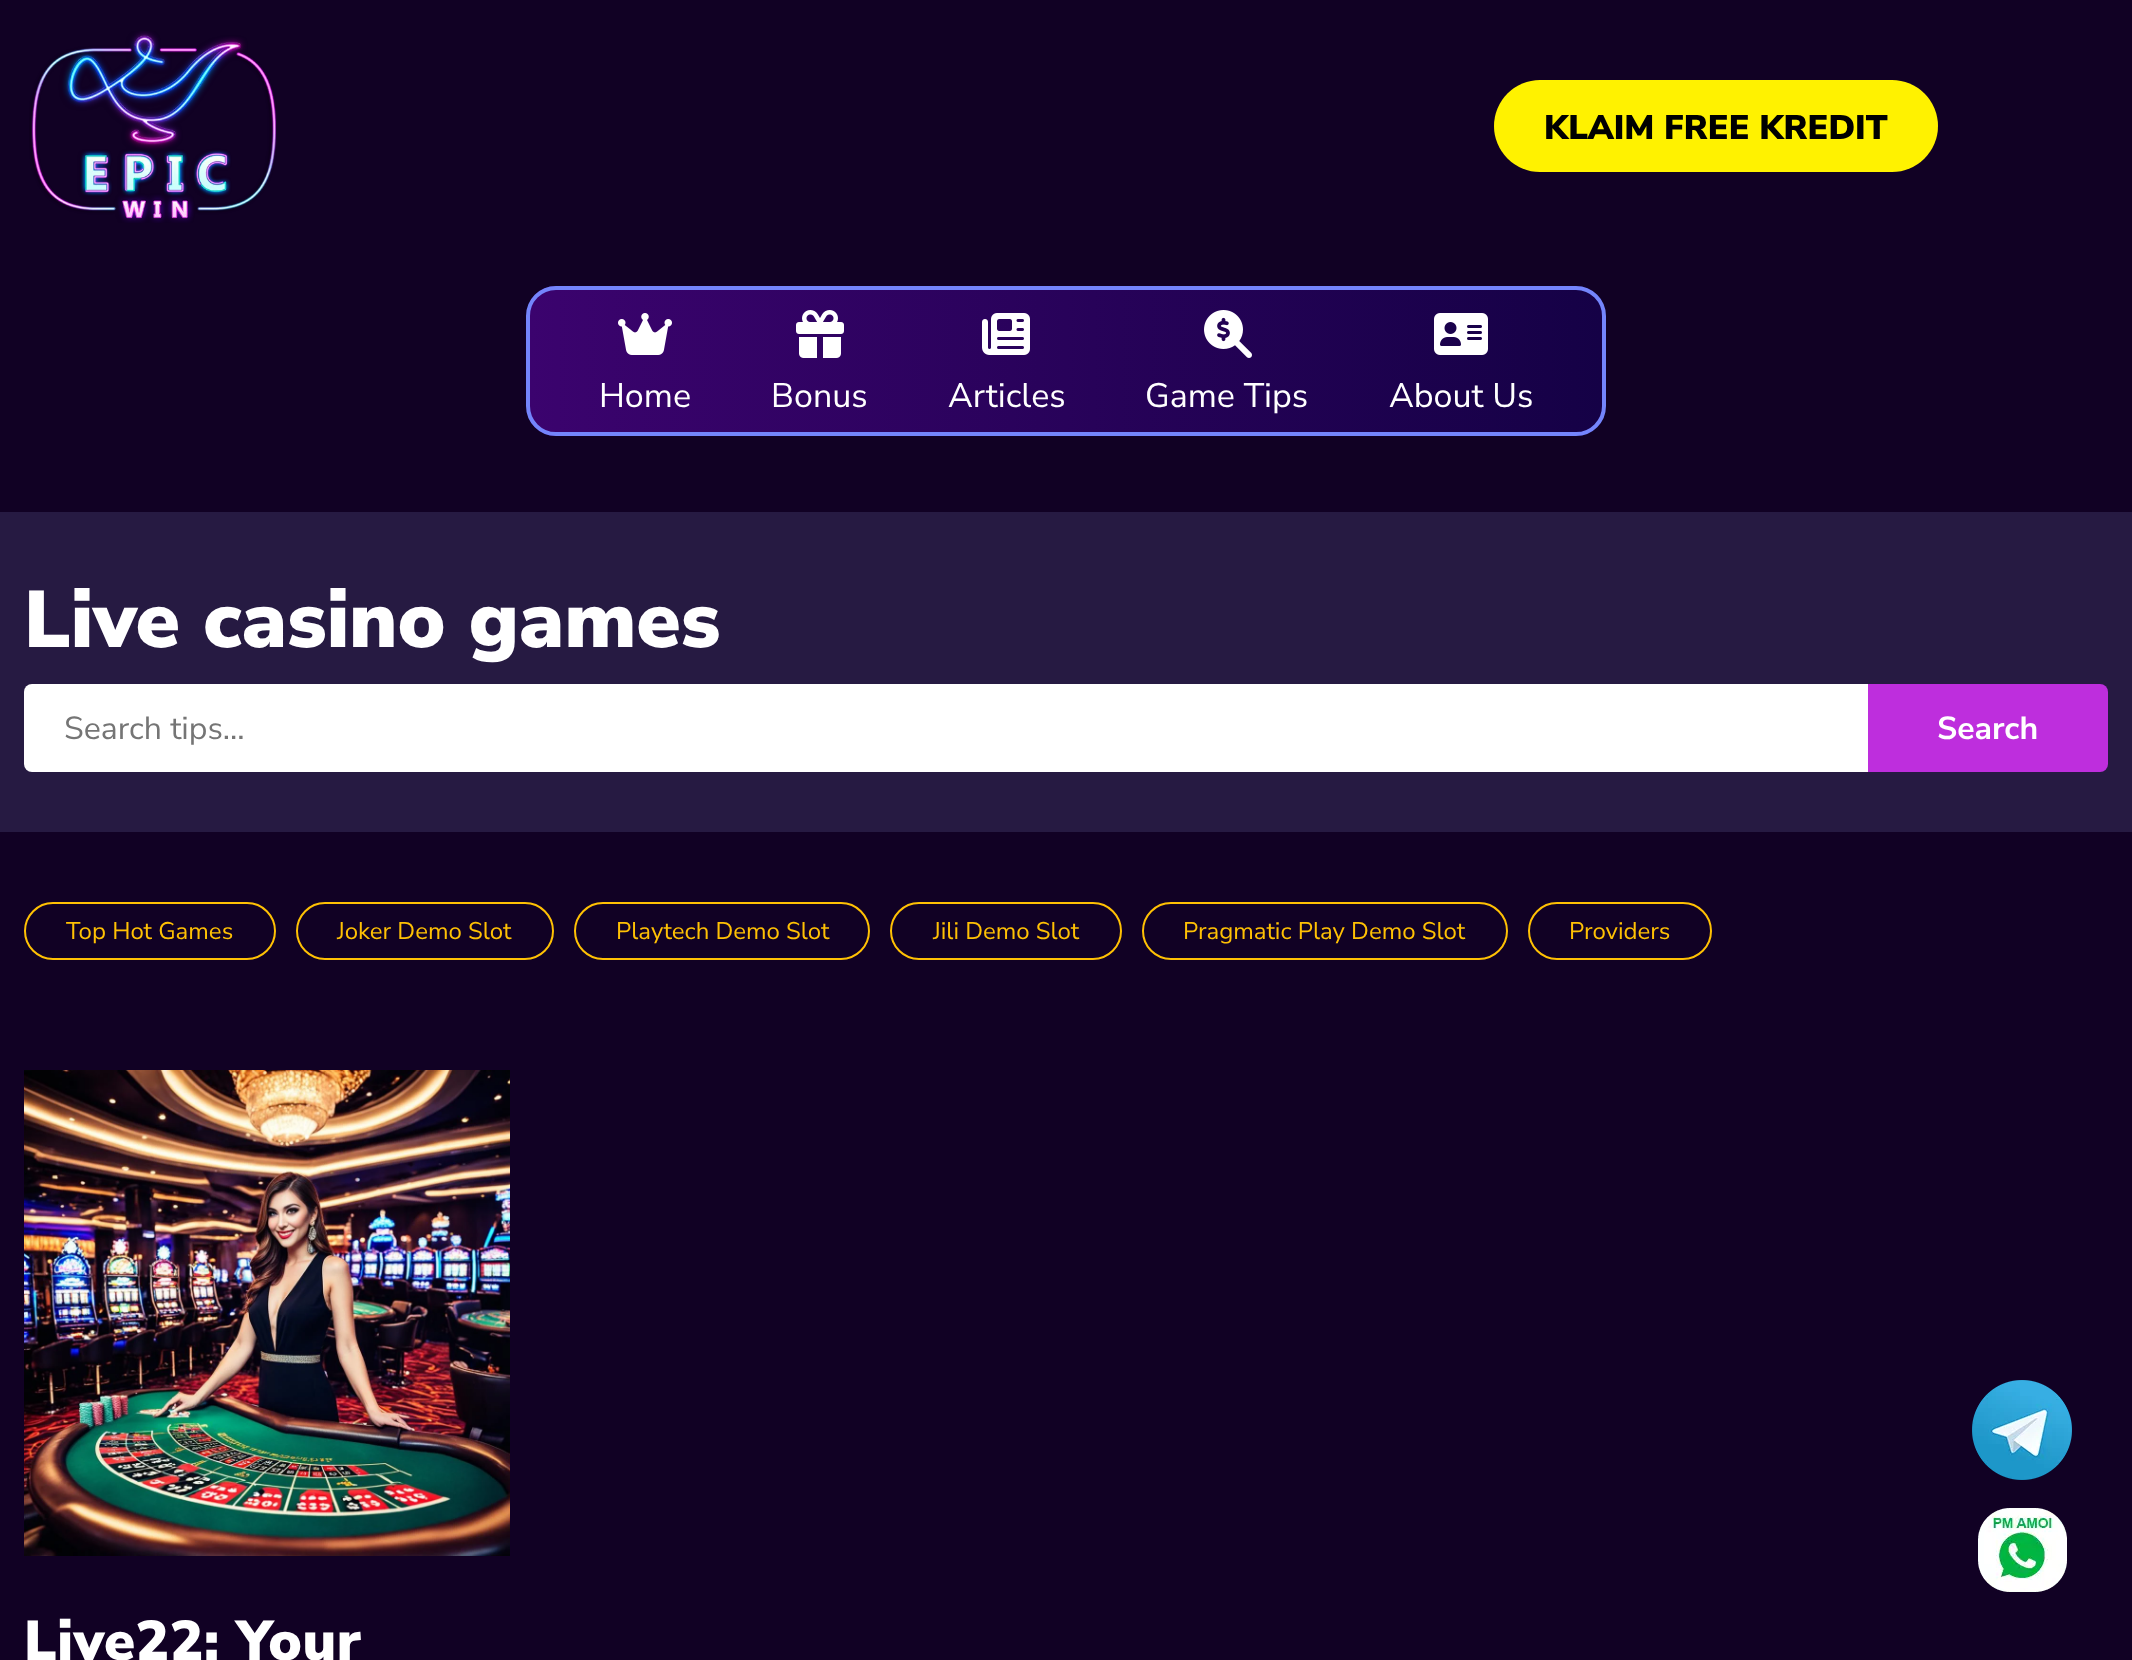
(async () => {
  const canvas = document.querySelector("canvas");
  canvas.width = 2132;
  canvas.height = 1660;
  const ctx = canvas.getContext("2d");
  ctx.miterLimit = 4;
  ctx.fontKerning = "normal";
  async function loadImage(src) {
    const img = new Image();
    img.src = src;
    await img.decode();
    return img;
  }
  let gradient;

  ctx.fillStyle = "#110124";
  ctx.fillRect(0, 0, 2132, 1660);
  ctx.drawImage(await loadImage("img/1.png"), 29, 31, 248, 192);
  ctx.fillStyle = "#fff200";
  ctx.beginPath();
  ctx.roundRect(1494, 80, 444, 92, 46);
  ctx.fill();
  ctx.save();
  ctx.beginPath();
  ctx.roundRect(526, 286, 1080, 150, 30);
  ctx.clip();
  gradient = ctx.createLinearGradient(530, 361, 1602, 361);
  gradient.addColorStop(0, "#3b036e");
  gradient.addColorStop(1, "#150146");
  ctx.fillStyle = gradient;
  ctx.fillRect(530, 286, 1072, 150);
  ctx.restore();
  ctx.beginPath();
  ctx.roundRect(528, 288, 1076, 146, 28);
  ctx.strokeStyle = "#7485fc";
  ctx.lineWidth = 4;
  ctx.stroke();
  ctx.drawImage(await loadImage("img/2.png"), 618, 313, 54, 42);
  ctx.drawImage(await loadImage("img/3.png"), 796, 310, 48, 48);
  ctx.drawImage(await loadImage("img/4.png"), 982, 313, 48, 42);
  ctx.drawImage(await loadImage("img/5.png"), 1204, 310, 48, 48);
  ctx.drawImage(await loadImage("img/6.png"), 1434, 313, 54, 42);
  ctx.fillStyle = "#261a42";
  ctx.fillRect(0, 512, 2132, 320);
  ctx.fillStyle = "#ffffff";
  ctx.beginPath();
  ctx.roundRect(24, 684, 1844, 88, [8, 0, 0, 8]);
  ctx.fill();
  ctx.fillStyle = "#be2edd";
  ctx.beginPath();
  ctx.roundRect(1868, 684, 240, 88, [0, 8, 8, 0]);
  ctx.fill();
  ctx.beginPath();
  ctx.roundRect(25, 903, 250, 56, 28);
  ctx.strokeStyle = "#ffc104";
  ctx.lineWidth = 2;
  ctx.stroke();
  ctx.beginPath();
  ctx.roundRect(297, 903, 256, 56, 28);
  ctx.stroke();
  ctx.beginPath();
  ctx.roundRect(575, 903, 294, 56, 28);
  ctx.stroke();
  ctx.beginPath();
  ctx.roundRect(891, 903, 230, 56, 28);
  ctx.stroke();
  ctx.beginPath();
  ctx.roundRect(1143, 903, 364, 56, 28);
  ctx.stroke();
  ctx.beginPath();
  ctx.roundRect(1529, 903, 182, 56, 28);
  ctx.stroke();
  ctx.drawImage(await loadImage("img/7.png"), 24, 1070, 486, 486);
  ctx.drawImage(await loadImage("img/8.png"), 1972, 1380, 100, 100);
  ctx.drawImage(await loadImage("img/9.png"), 1978, 1508, 89, 84);
  ctx.font = "900 34px Nunito Sans";
  ctx.fillStyle = "#000000";
  ctx.fillText("KLAIM FREE KREDIT", 1544, 139);
  ctx.font = "34px Nunito Sans";
  ctx.fillStyle = "#ffffff";
  for (const [text, x, y] of [
    ["Home", 599, 407],
    ["Bonus", 771, 407],
    ["Articles", 948, 407],
    ["Game Tips", 1145, 407],
    ["About Us", 1389, 407],
  ]) {
    ctx.fillText(text, x, y);
  }
  ctx.font = "900 80px Nunito Sans";
  ctx.fillText("Live casino games", 24, 647);
  ctx.font = "32px Nunito Sans";
  ctx.fillStyle = "#757575";
  ctx.fillText("Search tips...", 64, 739);
  ctx.font = "bold 32px Nunito Sans";
  ctx.fillStyle = "#ffffff";
  ctx.fillText("Search", 1937, 739);
  ctx.font = "24px Nunito Sans";
  ctx.fillStyle = "#ffc104";
  for (const [text, x, y] of [
    ["Top Hot Games", 66, 939],
    ["Joker Demo Slot", 337, 939],
    ["Playtech Demo Slot", 616, 939],
    ["Jili Demo Slot", 933, 939],
    ["Pragmatic Play Demo Slot", 1183, 939],
    ["Providers", 1569, 939],
  ]) {
    ctx.fillText(text, x, y);
  }
  ctx.letterSpacing = "0.6px";
  ctx.font = "900 56px Nunito Sans";
  ctx.fillStyle = "#ffffff";
  ctx.fillText("Live22: Your", 24, 1660);
})();
